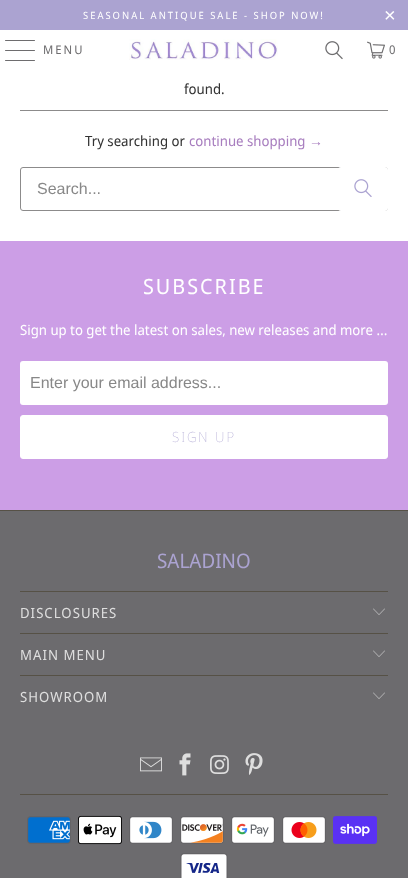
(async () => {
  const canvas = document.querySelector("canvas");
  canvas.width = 408;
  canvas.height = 878;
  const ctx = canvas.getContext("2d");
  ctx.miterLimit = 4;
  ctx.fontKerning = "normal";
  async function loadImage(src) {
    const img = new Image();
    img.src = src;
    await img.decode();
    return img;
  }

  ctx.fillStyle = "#ffffff";
  ctx.fillRect(0, 0, 408, 878);
  ctx.fillStyle = "#aba3d1";
  ctx.fillRect(0, 0, 408, 30);
  ctx.fillStyle = "#6e6d6f";
  ctx.beginPath();
  ctx.roundRect(5, 40, 30, 1, 0.5);
  ctx.fill();
  ctx.beginPath();
  ctx.roundRect(5, 50, 30, 1, 0.5);
  ctx.fill();
  ctx.beginPath();
  ctx.roundRect(5, 60, 30, 1, 0.5);
  ctx.fill();
  ctx.drawImage(await loadImage("img/1.png"), 129, 39, 149, 21);
  ctx.drawImage(await loadImage("img/2.png"), 325, 41, 18, 19);
  ctx.drawImage(await loadImage("img/3.png"), 367, 41, 18, 18);
  ctx.fillStyle = "#8c8b8b";
  ctx.fillRect(20, 110, 368, 1);
  ctx.beginPath();
  ctx.roundRect(20.5, 167.5, 367, 43, 2.5);
  ctx.strokeStyle = "#8c8b8b";
  ctx.stroke();
  ctx.fillStyle = "#ffffff";
  ctx.beginPath();
  ctx.roundRect(338, 167, 50, 44, 3);
  ctx.fill();
  ctx.drawImage(await loadImage("img/4.png"), 354, 179, 18, 18);
  ctx.fillStyle = "#cc9ee6";
  ctx.fillRect(0, 241, 408, 269);
  ctx.fillStyle = "#ffffff";
  ctx.beginPath();
  ctx.roundRect(20, 361, 368, 44, 3);
  ctx.fill();
  ctx.beginPath();
  ctx.roundRect(20.5, 415.5, 367, 43, 2.5);
  ctx.fill();
  ctx.strokeStyle = "#ffffff";
  ctx.stroke();
  for (const [x, y, w, h, color] of [
    [0, 511, 408, 367, "#6c6b6e"],
    [0, 510, 408, 1, "#565146"],
    [20, 591, 368, 1, "#565146"],
  ]) {
    ctx.fillStyle = color;
    ctx.fillRect(x, y, w, h);
  }
  ctx.drawImage(await loadImage("img/5.png"), 373, 608, 12, 7);
  ctx.fillRect(20, 633, 368, 1);
  ctx.drawImage(await loadImage("img/5.png"), 373, 650, 12, 7);
  ctx.fillRect(20, 675, 368, 1);
  ctx.drawImage(await loadImage("img/5.png"), 373, 692, 12, 7);
  ctx.drawImage(await loadImage("img/6.png"), 140, 757, 22, 15);
  ctx.drawImage(await loadImage("img/7.png"), 179, 753, 12, 23);
  ctx.drawImage(await loadImage("img/8.png"), 210, 755, 19, 19);
  ctx.drawImage(await loadImage("img/9.png"), 245, 753, 18, 22);
  ctx.fillRect(20, 794, 368, 1);
  ctx.drawImage(await loadImage("img/10.png"), 27, 816, 44, 28);
  ctx.drawImage(await loadImage("img/11.png"), 78, 815, 44, 30);
  ctx.drawImage(await loadImage("img/12.png"), 129, 816, 44, 28);
  ctx.drawImage(await loadImage("img/13.png"), 180, 816, 44, 28);
  ctx.drawImage(await loadImage("img/14.png"), 231, 816, 44, 28);
  ctx.drawImage(await loadImage("img/15.png"), 282, 816, 44, 28);
  ctx.drawImage(await loadImage("img/16.png"), 333, 816, 44, 28);
  ctx.drawImage(await loadImage("img/17.png"), 180, 853, 48, 25);
  ctx.letterSpacing = "2px";
  ctx.font = "10px Noto Sans Display";
  ctx.fillStyle = "#ffffff";
  ctx.fillText("SEASONAL ANTIQUE SALE - SHOP NOW!", 83, 19);
  ctx.font = "20px Liberation Sans";
  ctx.fillText("×", 384, 22);
  ctx.font = "12px Noto Sans Display";
  ctx.fillStyle = "#6e6d6f";
  ctx.fillText("MENU", 43, 54);
  ctx.fillText("0", 389, 54);
  ctx.letterSpacing = "0px";
  ctx.font = "14px Noto Sans Display";
  ctx.fillStyle = "#333333";
  ctx.fillText("found.", 184, 94);
  ctx.fillText("Try searching or", 85, 146);
  ctx.fillStyle = "#a87ebf";
  ctx.fillText("continue shopping", 189, 146);
  ctx.font = "14px Liberation Sans";
  ctx.fillText("→", 309, 146);
  ctx.font = "16px Liberation Sans";
  ctx.fillStyle = "#888888";
  ctx.fillText("Search...", 37, 194);
  ctx.letterSpacing = "2px";
  ctx.font = "21px Noto Sans Display";
  ctx.fillStyle = "#ffffff";
  ctx.fillText("SUBSCRIBE", 143, 294);
  ctx.letterSpacing = "0px";
  ctx.font = "14px Noto Sans Display";
  ctx.fillText("Sign up to get the latest on sales, new releases and more …", 20, 335);
  ctx.font = "16px Liberation Sans";
  ctx.fillStyle = "#888888";
  ctx.fillText("Enter your email address...", 30, 388);
  ctx.letterSpacing = "2px";
  ctx.font = "100 14px Noto Sans Display";
  ctx.fillStyle = "#aba3d1";
  ctx.fillText("SIGN UP", 172, 442);
  ctx.letterSpacing = "0px";
  ctx.font = "20px Noto Sans Display";
  ctx.fillText("SALADINO", 157, 568);
  ctx.letterSpacing = "1px";
  ctx.font = "14px Noto Sans Display";
  ctx.fillStyle = "#dedede";
  for (const [text, x, y] of [
    ["DISCLOSURES", 20, 618],
    ["MAIN MENU", 20, 660],
    ["SHOWROOM", 20, 702],
  ]) {
    ctx.fillText(text, x, y);
  }
})();
